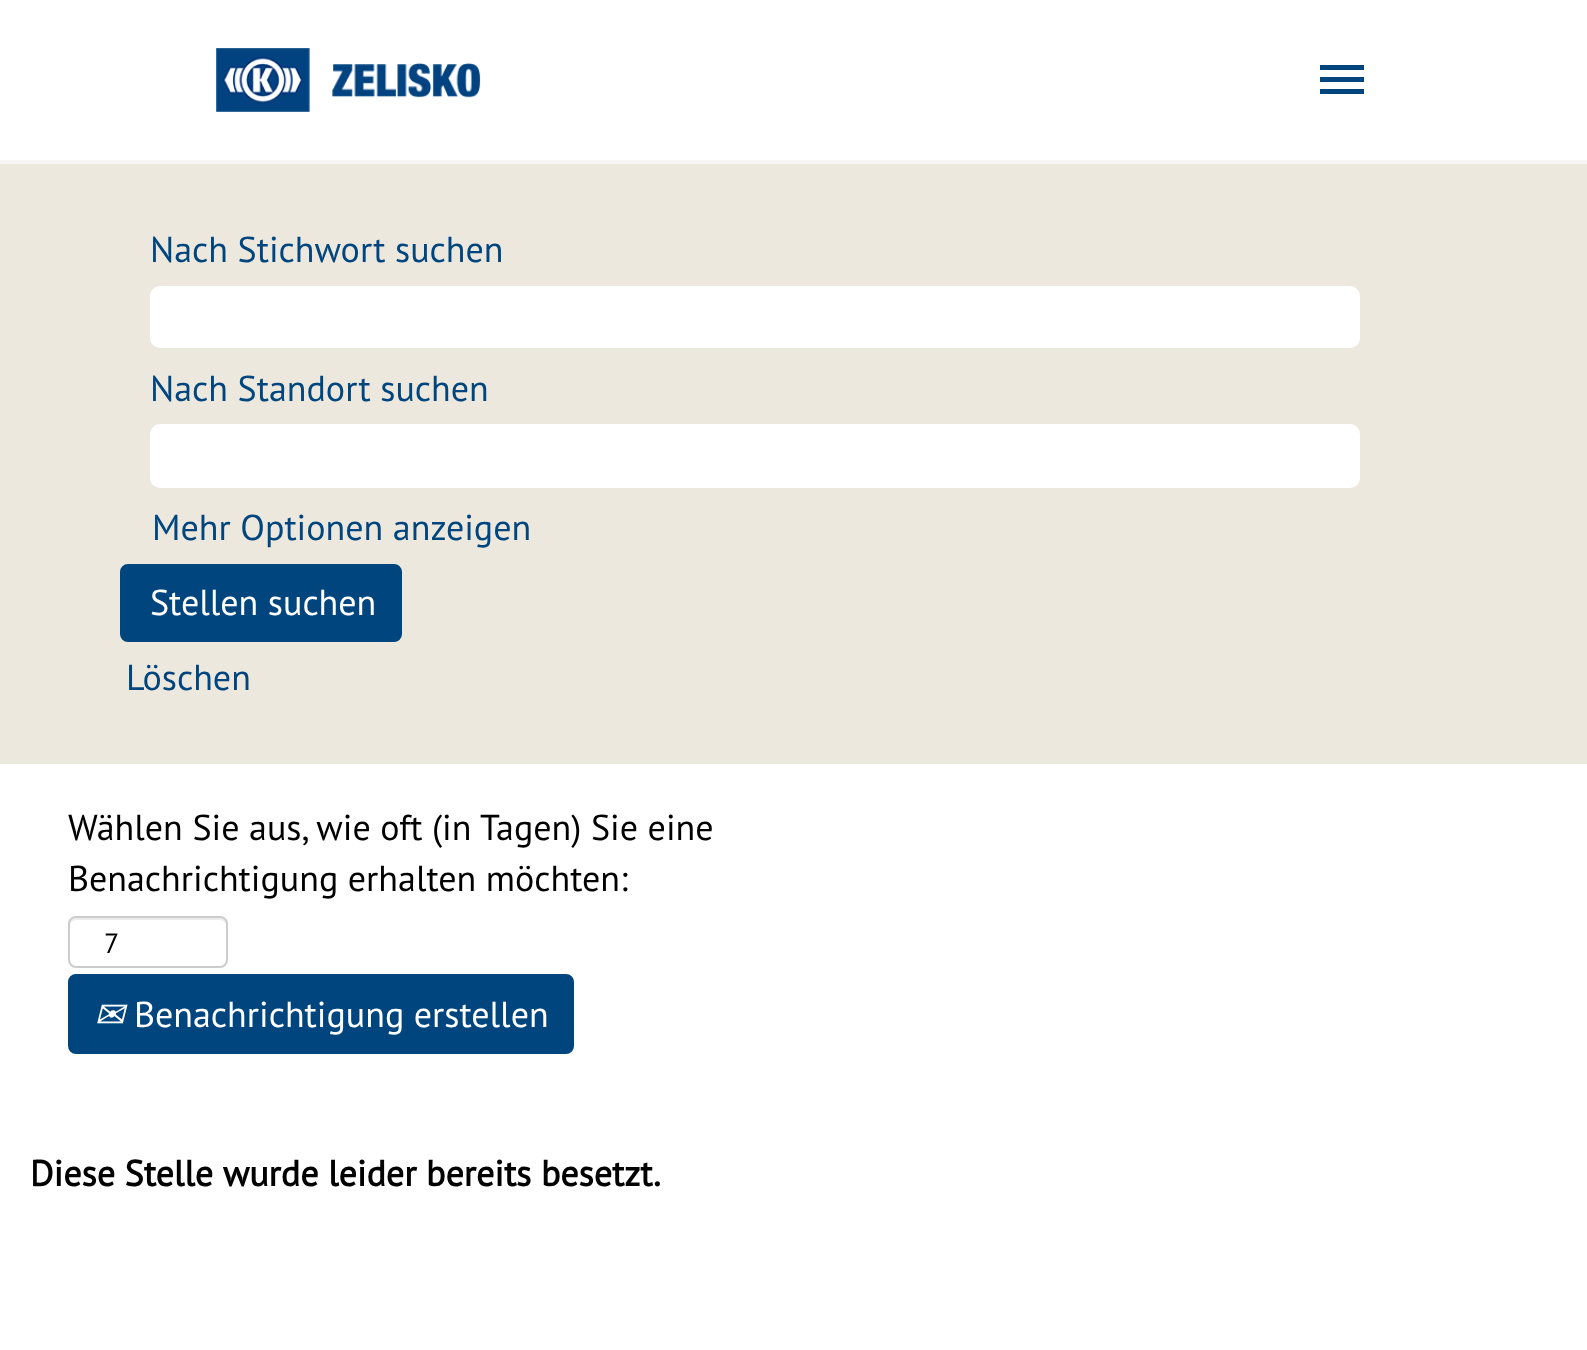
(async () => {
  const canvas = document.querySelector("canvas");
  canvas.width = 1587;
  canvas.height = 1350;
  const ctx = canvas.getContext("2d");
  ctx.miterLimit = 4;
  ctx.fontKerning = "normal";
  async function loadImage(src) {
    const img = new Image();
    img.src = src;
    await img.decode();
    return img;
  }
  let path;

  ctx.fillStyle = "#ffffff";
  ctx.fillRect(0, 0, 1587, 1350);
  ctx.fillStyle = "#f5f5f5";
  ctx.fillRect(0, 160, 1587, 4);
  ctx.drawImage(await loadImage("img/1.png"), 216, 48, 265, 64);
  ctx.fillStyle = "#00457e";
  path = new Path2D("M1320 94V89H1364V94ZM1320 82V77H1364V82ZM1320 70V65H1364V70Z");
  ctx.fill(path);
  ctx.fillStyle = "#ece8dd";
  ctx.fillRect(0, 164, 1587, 600);
  ctx.fillStyle = "#ffffff";
  ctx.beginPath();
  ctx.roundRect(152, 288, 1206, 58, 8);
  ctx.fill();
  ctx.strokeStyle = "#ffffff";
  ctx.lineWidth = 4;
  ctx.stroke();
  ctx.beginPath();
  ctx.roundRect(152, 426, 1206, 60, 8);
  ctx.fill();
  ctx.stroke();
  ctx.fillStyle = "#00457e";
  ctx.beginPath();
  ctx.roundRect(121, 565, 280, 76, 7);
  ctx.fill();
  ctx.strokeStyle = "#00457e";
  ctx.lineWidth = 2;
  ctx.stroke();
  ctx.fillStyle = "#ececec";
  path = new Path2D("M76 920H220C223 920 226 923 226 926V924C226 921 223 918 220 918H76C73 918 70 921 70 924V926C70 923 73 920 76 920Z");
  ctx.fill(path);
  ctx.beginPath();
  ctx.roundRect(69, 917, 158, 50, 7);
  ctx.strokeStyle = "#cccccc";
  ctx.stroke();
  ctx.fillStyle = "#00457e";
  ctx.beginPath();
  ctx.roundRect(69, 975, 504, 78, 7);
  ctx.fill();
  ctx.strokeStyle = "#00457e";
  ctx.stroke();
  ctx.font = "36px PT Sans";
  for (const [text, x, y] of [
    ["Nach Stichwort suchen", 150, 262],
    ["Nach Standort suchen", 150, 401],
    ["Mehr Optionen anzeigen", 152, 540],
  ]) {
    ctx.fillText(text, x, y);
  }
  ctx.fillStyle = "#ffffff";
  ctx.fillText("Stellen suchen", 150, 615);
  ctx.fillStyle = "#00457e";
  ctx.fillText("Löschen", 126, 690);
  ctx.fillStyle = "#000000";
  ctx.fillText("Wählen Sie aus, wie oft (in Tagen) Sie eine", 68, 840);
  ctx.fillText("Benachrichtigung erhalten möchten:", 68, 891);
  ctx.font = "28px PT Sans";
  ctx.fillText("7", 104, 953);
  ctx.font = "italic 36px DejaVu Sans";
  ctx.fillStyle = "#ffffff";
  ctx.fillText("✉", 94, 1027);
  ctx.font = "36px PT Sans";
  ctx.fillText("Benachrichtigung erstellen", 134, 1027);
  ctx.font = "bold 36px PT Sans";
  ctx.fillStyle = "#000000";
  ctx.fillText("Diese Stelle wurde leider bereits besetzt.", 30, 1186);
})();
